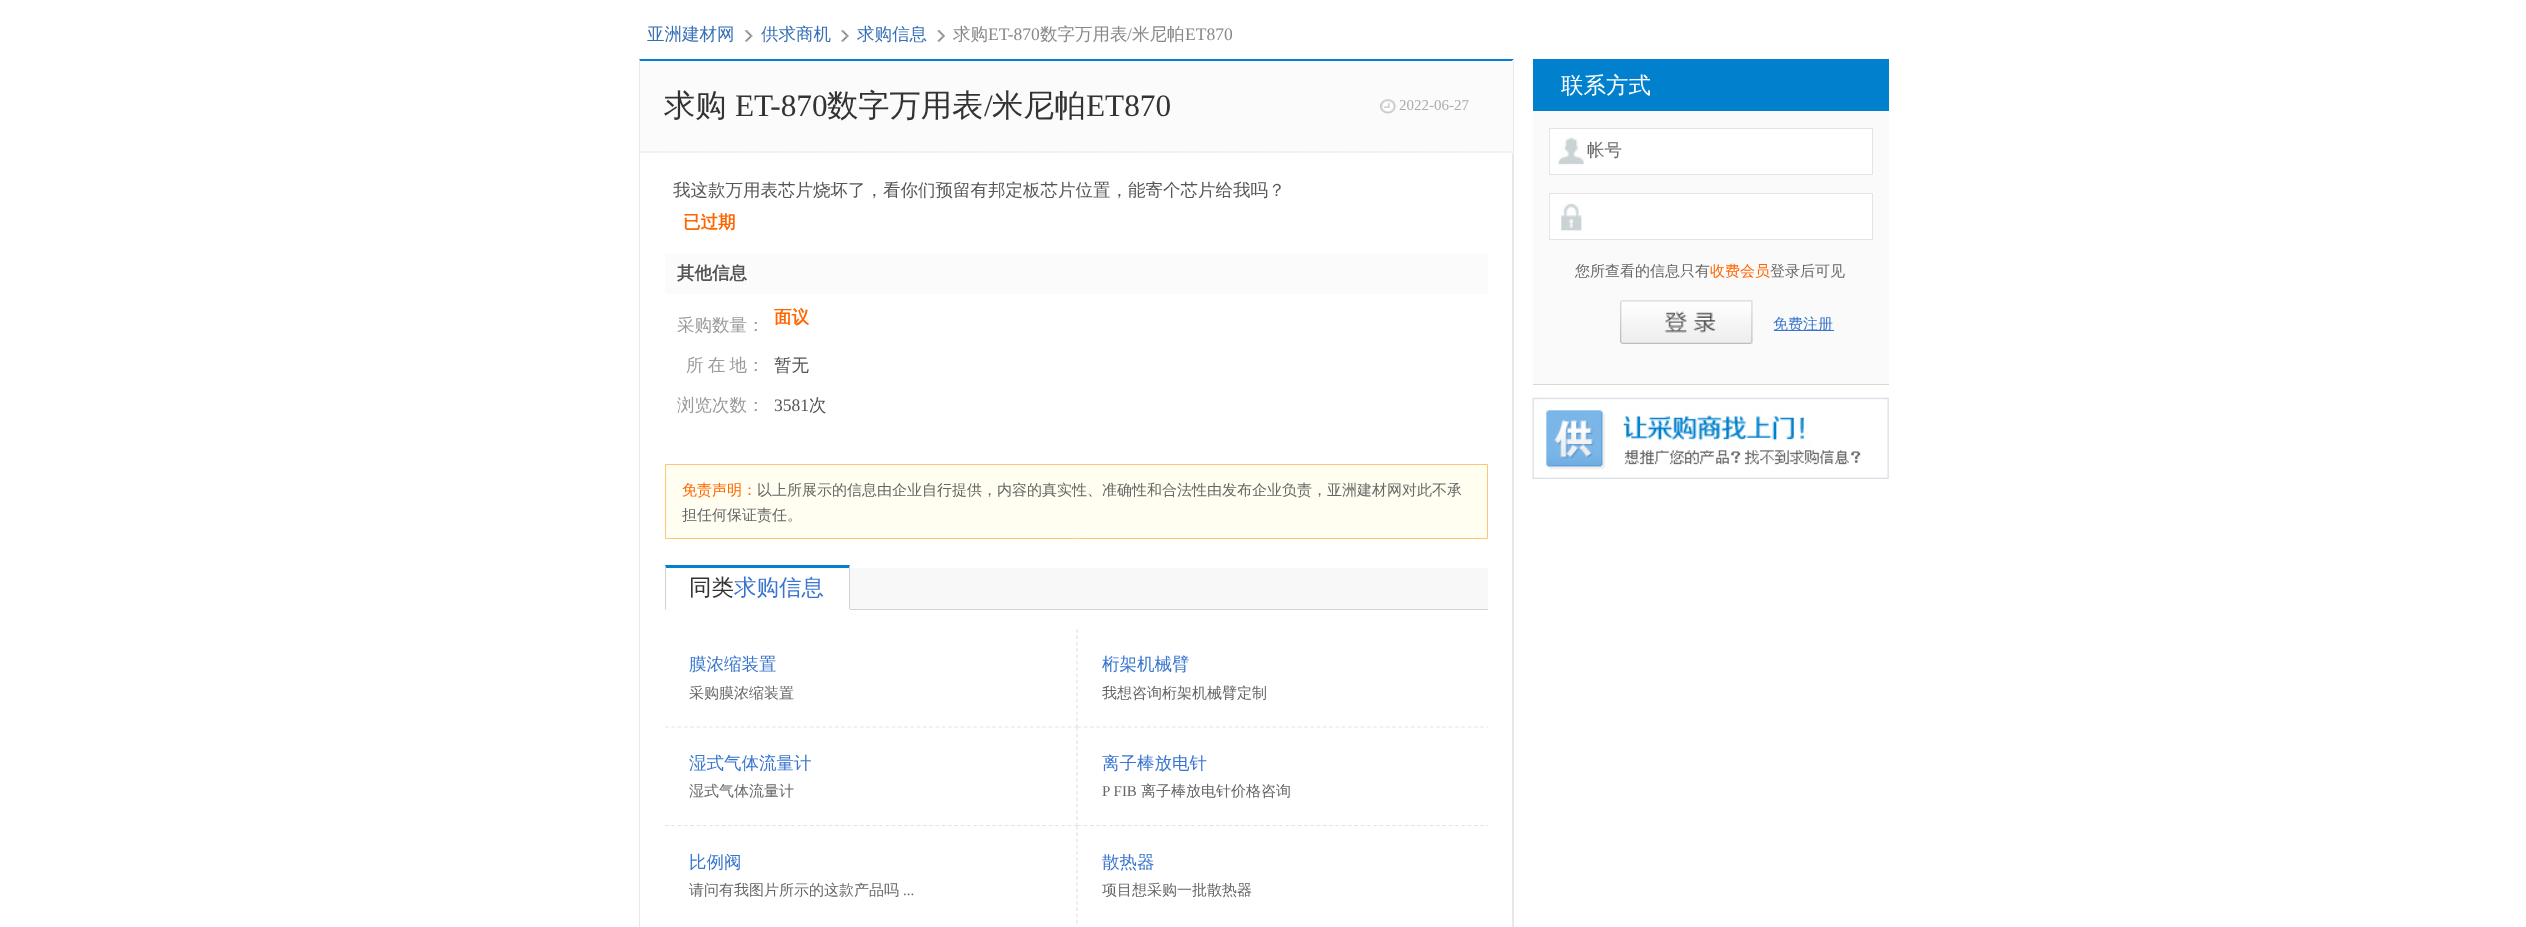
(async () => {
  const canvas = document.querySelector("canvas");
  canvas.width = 2526;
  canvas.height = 927;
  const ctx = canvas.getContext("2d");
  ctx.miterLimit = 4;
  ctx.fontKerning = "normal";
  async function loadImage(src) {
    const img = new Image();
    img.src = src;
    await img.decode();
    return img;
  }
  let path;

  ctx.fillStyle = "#ffffff";
  ctx.fillRect(0, 0, 2526, 927);
  ctx.drawImage(await loadImage("img/1.png"), 744, 30, 9, 12);
  ctx.drawImage(await loadImage("img/2.png"), 841, 30, 8, 12);
  ctx.drawImage(await loadImage("img/3.png"), 937, 30, 8, 12);
  ctx.fillStyle = "#0180cd";
  path = new Path2D("M639 59H1514L1512 61H640Z");
  ctx.fill(path);
  ctx.fillStyle = "#e8e8e8";
  path = new Path2D("M1514 59V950L1512 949V61Z");
  ctx.fill(path);
  path = new Path2D("M639 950V59L640 61V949Z");
  ctx.fill(path);
  ctx.fillStyle = "#fbfbfb";
  ctx.fillRect(640, 61, 873, 92);
  path = new Path2D("M640 152H1512.5");
  ctx.strokeStyle = "#d7d7d7";
  ctx.lineWidth = 1.2;
  ctx.setLineDash([1.25, 1.25]);
  ctx.stroke(path);
  ctx.drawImage(await loadImage("img/4.png"), 1380, 99, 17, 15);
  ctx.fillRect(665, 253, 823, 41);
  ctx.fillStyle = "#fffef0";
  ctx.beginPath();
  ctx.rect(665.5, 464.5, 822, 74);
  ctx.fill();
  ctx.strokeStyle = "#fec573";
  ctx.lineWidth = 1;
  ctx.setLineDash([]);
  ctx.stroke();
  ctx.fillStyle = "#f8f8f8";
  ctx.fillRect(850, 568, 638, 41);
  ctx.fillStyle = "#d2d2d2";
  ctx.fillRect(850, 609, 638, 1);
  ctx.fillStyle = "#0180cd";
  path = new Path2D("M665 565H850L849 568H666Z");
  ctx.fill(path);
  ctx.fillStyle = "#d2d2d2";
  path = new Path2D("M850 565V610L849 609V568Z");
  ctx.fill(path);
  ctx.fillStyle = "#ffffff";
  ctx.fillRect(849, 609, 1, 1);
  ctx.fillStyle = "#d2d2d2";
  path = new Path2D("M665 610V565L666 568V609Z");
  ctx.fill(path);
  path = new Path2D("M1077 629V727.5");
  ctx.strokeStyle = "#e3e3e3";
  ctx.lineWidth = 1.2;
  ctx.setLineDash([3.75, 2.59]);
  ctx.stroke(path);
  path = new Path2D("M665 727H1077.5");
  ctx.setLineDash([3.75, 2.54]);
  ctx.stroke(path);
  ctx.save();
  ctx.beginPath();
  ctx.rect(665, 610, 823, 314);
  ctx.clip();
  path = new Path2D("M1077.5 727H1490");
  ctx.stroke(path);
  ctx.restore();
  path = new Path2D("M1077 727.5V826");
  ctx.setLineDash([3.75, 2.59]);
  ctx.stroke(path);
  path = new Path2D("M665 825.5H1077.5");
  ctx.setLineDash([3.75, 2.54]);
  ctx.stroke(path);
  ctx.save();
  ctx.beginPath();
  ctx.rect(665, 610, 823, 314);
  ctx.clip();
  path = new Path2D("M1077.5 825.5H1490");
  ctx.stroke(path);
  ctx.restore();
  path = new Path2D("M1077 826V924");
  ctx.setLineDash([3.75, 2.5]);
  ctx.stroke(path);
  for (const [x, y, w, h, color] of [
    [1533, 59, 356, 52, "#0180cd"],
    [1533, 111, 356, 273, "#fafafa"],
    [1533, 384, 356, 1, "#d7d7d7"],
    [1550, 129, 322, 45, "#ffffff"],
  ]) {
    ctx.fillStyle = color;
    ctx.fillRect(x, y, w, h);
  }
  ctx.drawImage(await loadImage("img/5.png"), 1558, 137, 26, 28);
  ctx.strokeStyle = "#e4e4e4";
  ctx.lineWidth = 1;
  ctx.setLineDash([]);
  ctx.strokeRect(1549.5, 128.5, 323, 46);
  ctx.fillRect(1550, 194, 322, 45);
  ctx.drawImage(await loadImage("img/6.png"), 1561, 203, 21, 28);
  ctx.strokeRect(1549.5, 193.5, 323, 46);
  ctx.drawImage(await loadImage("img/7.png"), 1620, 300, 133, 44);
  ctx.fillStyle = "#3975ce";
  ctx.fillRect(1774, 330, 60, 1);
  ctx.drawImage(await loadImage("img/8.png"), 1532, 397, 357, 82);
  ctx.font = "500 17.5px WenQuanYi Zen Hei";
  ctx.fillStyle = "#366fb6";
  for (const [text, x, y] of [
    ["亚洲建材网", 647, 40],
    ["供求商机", 761, 40],
    ["求购信息", 857, 40],
  ]) {
    ctx.fillText(text, x, y);
  }
  ctx.fillStyle = "#888888";
  ctx.fillText("求购", 953, 40);
  ctx.font = "17.5px Liberation Serif";
  ctx.fillText("ET-870", 988, 40);
  ctx.font = "500 17.5px WenQuanYi Zen Hei";
  ctx.fillText("数字万用表", 1040, 40);
  ctx.font = "17.5px Liberation Serif";
  ctx.fillText("/", 1127, 40);
  ctx.font = "500 17.5px WenQuanYi Zen Hei";
  ctx.fillText("米尼帕", 1132, 40);
  ctx.font = "17.5px Liberation Serif";
  ctx.fillText("ET870", 1185, 40);
  ctx.font = "500 31.25px WenQuanYi Zen Hei";
  ctx.fillStyle = "#333333";
  ctx.fillText("求购", 664, 116);
  ctx.font = "31.25px Liberation Serif";
  ctx.fillText("ET-870", 735, 116);
  ctx.font = "500 31.25px WenQuanYi Zen Hei";
  ctx.fillText("数字万用表", 827, 116);
  ctx.font = "31.25px Liberation Serif";
  ctx.fillText("/", 984, 116);
  ctx.font = "500 31.25px WenQuanYi Zen Hei";
  ctx.fillText("米尼帕", 992, 116);
  ctx.font = "31.25px Liberation Serif";
  ctx.fillText("ET870", 1086, 116);
  ctx.font = "15px Liberation Serif";
  ctx.fillStyle = "#acacac";
  ctx.fillText("2022-06-27", 1399, 110);
  ctx.font = "500 17.5px WenQuanYi Zen Hei";
  ctx.fillStyle = "#555555";
  ctx.fillText("我这款万用表芯片烧坏了，看你们预留有邦定板芯片位置，能寄个芯片给我吗？", 673, 196);
  ctx.font = "bold 17.5px WenQuanYi Zen Hei";
  ctx.fillStyle = "#ff6600";
  ctx.fillText("已过期", 683, 228);
  ctx.fillStyle = "#555555";
  ctx.fillText("其他信息", 677, 279);
  ctx.font = "500 17.5px WenQuanYi Zen Hei";
  ctx.fillStyle = "#9a9a9a";
  ctx.fillText("采购数量：", 677, 331);
  ctx.font = "bold 17.5px WenQuanYi Zen Hei";
  ctx.fillStyle = "#ff6600";
  ctx.fillText("面议", 774, 323);
  ctx.wordSpacing = "-1px";
  ctx.font = "500 17.5px WenQuanYi Zen Hei";
  ctx.fillStyle = "#9a9a9a";
  ctx.fillText("所 在 地：", 686, 371);
  ctx.wordSpacing = "0px";
  ctx.fillStyle = "#555555";
  ctx.fillText("暂无", 774, 371);
  ctx.fillStyle = "#9a9a9a";
  ctx.fillText("浏览次数：", 677, 411);
  ctx.font = "17.5px Liberation Serif";
  ctx.fillStyle = "#555555";
  ctx.fillText("3581", 774, 411);
  ctx.font = "500 17.5px WenQuanYi Zen Hei";
  ctx.fillText("次", 809, 411);
  ctx.font = "500 15px WenQuanYi Zen Hei";
  ctx.fillStyle = "#ff6600";
  ctx.fillText("免责声明：", 682, 495);
  ctx.fillStyle = "#666666";
  ctx.fillText("以上所展示的信息由企业自行提供，内容的真实性、准确性和合法性由发布企业负责，亚洲建材网对此不承", 757, 495);
  ctx.fillText("担任何保证责任。", 682, 520);
  ctx.font = "500 22.5px WenQuanYi Zen Hei";
  ctx.fillStyle = "#333333";
  ctx.fillText("同类", 689, 595);
  ctx.fillStyle = "#3975ce";
  ctx.fillText("求购信息", 734, 595);
  ctx.font = "500 17.5px WenQuanYi Zen Hei";
  ctx.fillText("膜浓缩装置", 689, 670);
  ctx.font = "500 15px WenQuanYi Zen Hei";
  ctx.fillStyle = "#666666";
  ctx.fillText("采购膜浓缩装置", 689, 698);
  ctx.font = "500 17.5px WenQuanYi Zen Hei";
  ctx.fillStyle = "#3975ce";
  ctx.fillText("桁架机械臂", 1102, 670);
  ctx.font = "500 15px WenQuanYi Zen Hei";
  ctx.fillStyle = "#666666";
  ctx.fillText("我想咨询桁架机械臂定制", 1102, 698);
  ctx.font = "500 17.5px WenQuanYi Zen Hei";
  ctx.fillStyle = "#3975ce";
  ctx.fillText("湿式气体流量计", 689, 769);
  ctx.font = "500 15px WenQuanYi Zen Hei";
  ctx.fillStyle = "#666666";
  ctx.fillText("湿式气体流量计", 689, 796);
  ctx.font = "500 17.5px WenQuanYi Zen Hei";
  ctx.fillStyle = "#3975ce";
  ctx.fillText("离子棒放电针", 1102, 769);
  ctx.font = "15px Liberation Serif";
  ctx.fillStyle = "#666666";
  ctx.fillText("P FIB", 1102, 796);
  ctx.font = "500 15px WenQuanYi Zen Hei";
  ctx.fillText("离子棒放电针价格咨询", 1141, 796);
  ctx.font = "500 17.5px WenQuanYi Zen Hei";
  ctx.fillStyle = "#3975ce";
  ctx.fillText("比例阀", 689, 868);
  ctx.font = "500 15px WenQuanYi Zen Hei";
  ctx.fillStyle = "#666666";
  ctx.fillText("请问有我图片所示的这款产品吗", 689, 895);
  ctx.font = "15px Liberation Serif";
  ctx.fillText("...", 903, 895);
  ctx.font = "500 17.5px WenQuanYi Zen Hei";
  ctx.fillStyle = "#3975ce";
  ctx.fillText("散热器", 1102, 868);
  ctx.font = "500 15px WenQuanYi Zen Hei";
  ctx.fillStyle = "#666666";
  ctx.fillText("项目想采购一批散热器", 1102, 895);
  ctx.font = "500 22.5px WenQuanYi Zen Hei";
  ctx.fillStyle = "#ffffff";
  ctx.fillText("联系方式", 1561, 93);
  ctx.font = "500 17.5px WenQuanYi Zen Hei";
  ctx.fillStyle = "#666666";
  ctx.fillText("帐号", 1587, 156);
  ctx.font = "500 15px WenQuanYi Zen Hei";
  ctx.fillText("您所查看的信息只有", 1575, 276);
  ctx.fillStyle = "#ff6600";
  ctx.fillText("收费会员", 1710, 276);
  ctx.fillStyle = "#666666";
  ctx.fillText("登录后可见", 1770, 276);
  ctx.fillStyle = "#3975ce";
  ctx.fillText("免费注册", 1773, 329);
})();
